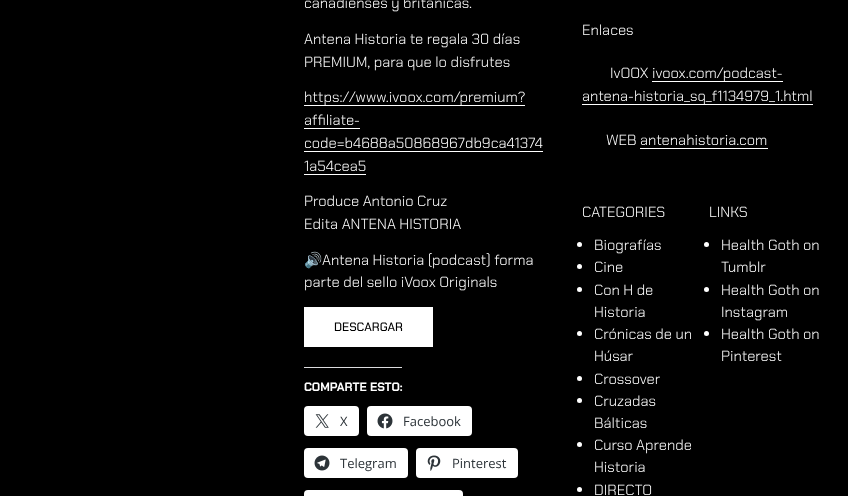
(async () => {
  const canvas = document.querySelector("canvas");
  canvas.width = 848;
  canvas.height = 496;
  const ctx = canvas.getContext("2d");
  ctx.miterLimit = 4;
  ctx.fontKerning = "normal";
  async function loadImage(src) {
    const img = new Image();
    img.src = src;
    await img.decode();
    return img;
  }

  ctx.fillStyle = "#000000";
  ctx.fillRect(0, 0, 848, 496);
  for (const [x, y, w, h, color] of [
    [304, 105, 221, 1, "#ffffff"],
    [304, 128, 56, 1, "#ffffff"],
    [304, 151, 239, 1, "#ffffff"],
    [304, 174, 62, 1, "#ffffff"],
    [304, 307, 129, 40, "#ffffff"],
    [304, 367, 98, 1, "#dcdcde"],
  ]) {
    ctx.fillStyle = color;
    ctx.fillRect(x, y, w, h);
  }
  ctx.fillStyle = "#ffffff";
  ctx.beginPath();
  ctx.roundRect(304, 406, 55, 30, 4);
  ctx.fill();
  ctx.drawImage(await loadImage("img/1.png"), 315, 414, 14, 14);
  ctx.beginPath();
  ctx.roundRect(367, 406, 105, 30, 4);
  ctx.fill();
  ctx.drawImage(await loadImage("img/2.png"), 377, 413, 16, 16);
  ctx.beginPath();
  ctx.roundRect(304, 448, 104, 30, 4);
  ctx.fill();
  ctx.drawImage(await loadImage("img/3.png"), 314, 455, 16, 16);
  ctx.beginPath();
  ctx.roundRect(416, 448, 102, 30, 4);
  ctx.fill();
  ctx.drawImage(await loadImage("img/4.png"), 427, 455, 14, 16);
  ctx.beginPath();
  ctx.roundRect(304, 490, 159, 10, 4);
  ctx.fill();
  for (const [x, y, w, h, color] of [
    [652, 81, 131, 1, "#ffffff"],
    [582, 104, 231, 1, "#ffffff"],
    [640, 148, 128, 1, "#ffffff"],
  ]) {
    ctx.fillStyle = color;
    ctx.fillRect(x, y, w, h);
  }
  ctx.beginPath();
  ctx.arc(579.5, 244.5, 2.5, 0, Math.PI * 2);
  ctx.fill();
  ctx.beginPath();
  ctx.arc(579.5, 266.5, 2.5, 0, Math.PI * 2);
  ctx.fill();
  ctx.beginPath();
  ctx.arc(579.5, 289.5, 2.5, 0, Math.PI * 2);
  ctx.fill();
  ctx.beginPath();
  ctx.arc(579.5, 333.5, 2.5, 0, Math.PI * 2);
  ctx.fill();
  ctx.beginPath();
  ctx.arc(579.5, 378.5, 2.5, 0, Math.PI * 2);
  ctx.fill();
  ctx.beginPath();
  ctx.arc(579.5, 400.5, 2.5, 0, Math.PI * 2);
  ctx.fill();
  ctx.beginPath();
  ctx.arc(579.5, 444.5, 2.5, 0, Math.PI * 2);
  ctx.fill();
  ctx.beginPath();
  ctx.arc(579.5, 489.5, 2.5, 0, Math.PI * 2);
  ctx.fill();
  ctx.beginPath();
  ctx.arc(706.5, 244.5, 2.5, 0, Math.PI * 2);
  ctx.fill();
  ctx.beginPath();
  ctx.arc(706.5, 289.5, 2.5, 0, Math.PI * 2);
  ctx.fill();
  ctx.beginPath();
  ctx.arc(706.5, 333.5, 2.5, 0, Math.PI * 2);
  ctx.fill();
  ctx.font = "300 14.8px Chakra Petch";
  for (const [text, x, y] of [
    ["canadienses y británicas.", 304, 8],
    ["Antena Historia te regala 30 días", 304, 44],
    ["PREMIUM, para que lo disfrutes", 304, 67],
    ["https://www.ivoox.com/premium?", 304, 102],
    ["affiliate-", 304, 125],
    ["code=b4688a50868967db9ca41374", 304, 148],
    ["1a54cea5", 304, 171],
    ["Produce Antonio Cruz", 304, 206],
    ["Edita ANTENA HISTORIA", 304, 229],
  ]) {
    ctx.fillText(text, x, y);
  }
  ctx.font = "14.8px Noto Color Emoji";
  ctx.fillText("🔊", 304, 265);
  ctx.font = "300 14.8px Chakra Petch";
  ctx.fillText("Antena Historia (podcast) forma", 322, 265);
  ctx.fillText("parte del sello iVoox Originals", 304, 287);
  ctx.font = "500 12px Chakra Petch";
  ctx.fillStyle = "#000000";
  ctx.fillText("DESCARGAR", 334, 331);
  ctx.font = "bold 12px Chakra Petch";
  ctx.fillStyle = "#ffffff";
  ctx.fillText("COMPARTE ESTO:", 304, 391);
  ctx.font = "13px Open Sans";
  ctx.fillStyle = "#2c3338";
  for (const [text, x, y] of [
    ["X", 340, 426],
    ["Facebook", 403, 426],
    ["Telegram", 340, 468],
    ["Pinterest", 452, 468],
  ]) {
    ctx.fillText(text, x, y);
  }
  ctx.font = "300 14.8px Chakra Petch";
  ctx.fillStyle = "#ffffff";
  for (const [text, x, y] of [
    ["Enlaces", 582, 35],
    ["IvOOX", 610, 78],
    ["ivoox.com/podcast-", 652, 78],
    ["antena-historia_sq_f1134979_1.html", 582, 101],
    ["WEB antenahistoria.com", 606, 145],
    ["CATEGORIES", 582, 217],
    ["Biografías", 594, 250],
    ["Cine", 594, 272],
    ["Con H de", 594, 295],
    ["Historia", 594, 317],
    ["Crónicas de un", 594, 339],
    ["Húsar", 594, 361],
    ["Crossover", 594, 384],
    ["Cruzadas", 594, 406],
    ["Bálticas", 594, 428],
    ["Curso Aprende", 594, 450],
    ["Historia", 594, 472],
    ["DIRECTO", 594, 495],
    ["LINKS", 709, 217],
    ["Health Goth on", 721, 250],
    ["Tumblr", 721, 272],
    ["Health Goth on", 721, 295],
    ["Instagram", 721, 317],
    ["Health Goth on", 721, 339],
    ["Pinterest", 721, 361],
  ]) {
    ctx.fillText(text, x, y);
  }
})();
